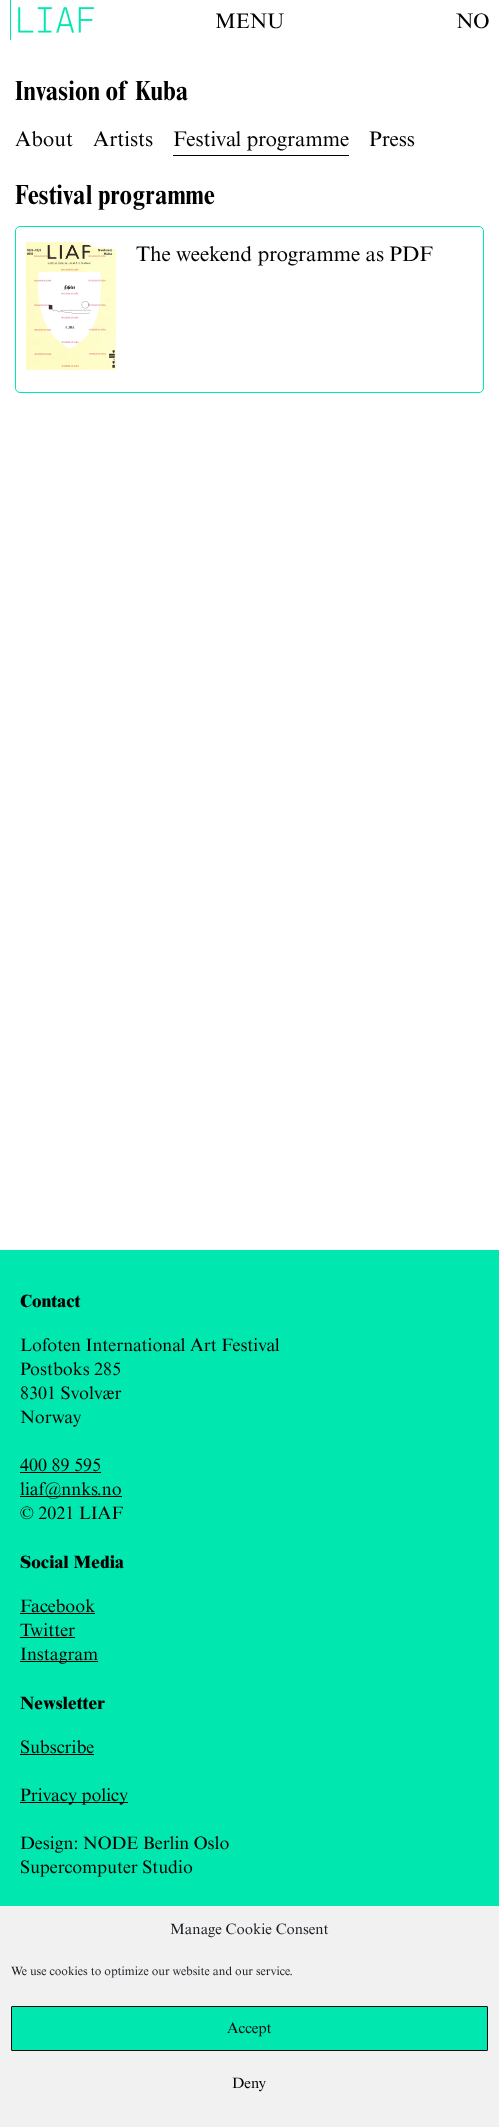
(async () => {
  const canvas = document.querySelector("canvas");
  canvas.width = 499;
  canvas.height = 2127;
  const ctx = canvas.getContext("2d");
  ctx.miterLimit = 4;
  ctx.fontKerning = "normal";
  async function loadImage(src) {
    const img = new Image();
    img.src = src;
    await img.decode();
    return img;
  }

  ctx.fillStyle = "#ffffff";
  ctx.fillRect(0, 0, 499, 2127);
  ctx.drawImage(await loadImage("img/1.png"), 10, 0, 84, 40);
  ctx.fillStyle = "#000000";
  ctx.fillRect(173, 155, 176, 1);
  ctx.beginPath();
  ctx.roundRect(15.5, 226.5, 468, 166, 4.5);
  ctx.strokeStyle = "#00e8af";
  ctx.stroke();
  ctx.drawImage(await loadImage("img/2.png"), 26, 242, 90, 128);
  for (const [x, y, w, h, color] of [
    [0, 1250, 499, 656, "#00e8af"],
    [20, 1472, 81, 1, "#000000"],
    [20, 1496, 102, 1, "#000000"],
    [20, 1613, 75, 1, "#000000"],
    [20, 1637, 55, 1, "#000000"],
    [20, 1661, 78, 1, "#000000"],
    [20, 1754, 74, 1, "#000000"],
    [20, 1802, 108, 1, "#000000"],
    [0, 1906, 499, 221, "#f1f1f1"],
  ]) {
    ctx.fillStyle = color;
    ctx.fillRect(x, y, w, h);
  }
  ctx.fillStyle = "#00e8af";
  ctx.beginPath();
  ctx.roundRect(11.5, 2006.5, 476, 44, 0.5);
  ctx.fill();
  ctx.strokeStyle = "#0a0a0a";
  ctx.stroke();
  ctx.font = "21px 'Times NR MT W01'";
  ctx.fillStyle = "#000000";
  ctx.fillText("MENU", 215, 28);
  ctx.fillText("NO", 456, 28);
  ctx.font = "bold 28px 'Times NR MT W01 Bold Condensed'";
  ctx.fillText("Invasion of Kuba", 15, 100);
  ctx.font = "21px 'Times NR MT W01'";
  for (const [text, x, y] of [
    ["About", 15, 146],
    ["Artists", 93, 146],
    ["Festival programme", 173, 146],
    ["Press", 369, 146],
  ]) {
    ctx.fillText(text, x, y);
  }
  ctx.font = "bold 28px 'Times NR MT W01 Bold Condensed'";
  ctx.fillText("Festival programme", 15, 204);
  ctx.font = "21px 'Times NR MT W01'";
  ctx.fillText("The weekend programme as PDF", 136, 261);
  ctx.font = "800 18px 'Times NR MT W01'";
  ctx.fillText("Contact", 20, 1307);
  ctx.font = "18px 'Times NR MT W01'";
  for (const [text, x, y] of [
    ["Lofoten International Art Festival", 20, 1351],
    ["Postboks 285", 20, 1375],
    ["8301 Svolvær", 20, 1399],
    ["Norway", 20, 1423],
    ["400 89 595", 20, 1471],
    ["liaf@nnks.no", 20, 1495],
    ["© 2021 LIAF", 20, 1519],
  ]) {
    ctx.fillText(text, x, y);
  }
  ctx.font = "800 18px 'Times NR MT W01'";
  ctx.fillText("Social Media", 20, 1568);
  ctx.font = "18px 'Times NR MT W01'";
  for (const [text, x, y] of [
    ["Facebook", 20, 1612],
    ["Twitter", 20, 1636],
    ["Instagram", 20, 1660],
  ]) {
    ctx.fillText(text, x, y);
  }
  ctx.font = "800 18px 'Times NR MT W01'";
  ctx.fillText("Newsletter", 20, 1709);
  ctx.font = "18px 'Times NR MT W01'";
  for (const [text, x, y] of [
    ["Subscribe", 20, 1753],
    ["Privacy policy", 20, 1801],
    ["Design: NODE Berlin Oslo", 20, 1849],
    ["Supercomputer Studio", 20, 1873],
  ]) {
    ctx.fillText(text, x, y);
  }
  ctx.font = "15px 'Times NR MT W01'";
  ctx.fillStyle = "#191e23";
  ctx.fillText("Manage Cookie Consent", 170, 1934);
  ctx.font = "12px 'Times NR MT W01'";
  ctx.fillText("We use cookies to optimize our website and our service.", 11, 1975);
  ctx.font = "15px 'Times NR MT W01'";
  ctx.fillStyle = "#0a0a0a";
  ctx.fillText("Accept", 227, 2033);
  ctx.fillStyle = "#000000";
  ctx.fillText("Deny", 232, 2088);
})();
